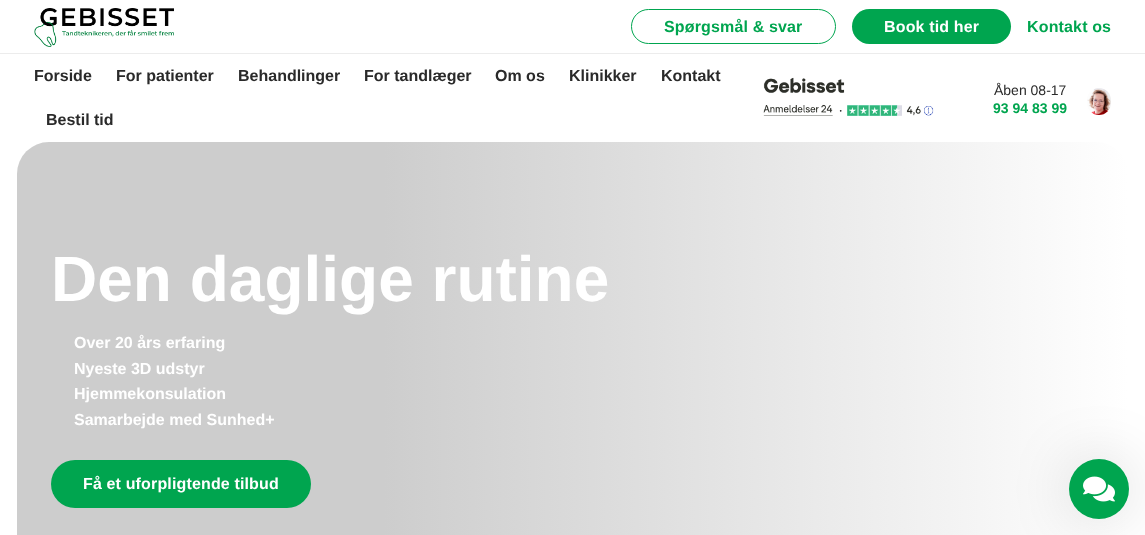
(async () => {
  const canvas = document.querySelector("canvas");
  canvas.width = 1145;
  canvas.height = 535;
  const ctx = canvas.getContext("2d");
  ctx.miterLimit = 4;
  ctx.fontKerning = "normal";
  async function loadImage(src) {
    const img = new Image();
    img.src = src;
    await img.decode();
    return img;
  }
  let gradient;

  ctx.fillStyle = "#ffffff";
  ctx.fillRect(0, 0, 1145, 535);
  ctx.fillStyle = "#ececec";
  ctx.fillRect(0, 53, 1145, 1);
  ctx.drawImage(await loadImage("img/1.png"), 34, 8, 140, 39);
  ctx.beginPath();
  ctx.roundRect(631.5, 9.5, 204, 34, 17);
  ctx.strokeStyle = "#00a54f";
  ctx.stroke();
  ctx.fillStyle = "#00a54f";
  ctx.beginPath();
  ctx.roundRect(852, 9, 159, 35, 17.5);
  ctx.fill();
  ctx.drawImage(await loadImage("img/2.png"), 763, 77, 171, 39);
  ctx.drawImage(await loadImage("img/3.png"), 1087, 88, 24, 27);
  gradient = ctx.createLinearGradient(17, 376, 1128, 376);
  gradient.addColorStop(0.33, "#cdcdcd");
  gradient.addColorStop(1, "#ffffff");
  ctx.fillStyle = gradient;
  ctx.beginPath();
  ctx.roundRect(17, 142, 1111, 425, 32);
  ctx.fill();
  ctx.fillStyle = "#00a54f";
  ctx.beginPath();
  ctx.roundRect(51, 460, 260, 48, 24);
  ctx.fill();
  ctx.fillStyle = "rgba(0, 0, 0, 0.15)";
  ctx.filter = "blur(30px)";
  ctx.beginPath();
  ctx.roundRect(1069, 459, 60, 60, 30);
  ctx.fill();
  ctx.filter = "none";
  ctx.fillStyle = "#00a54f";
  ctx.beginPath();
  ctx.arc(1099, 489, 30, 0, Math.PI * 2);
  ctx.fill();
  ctx.drawImage(await loadImage("img/4.png"), 1083, 476, 32, 26);
  ctx.letterSpacing = "0.15px";
  ctx.font = "bold 16px Liberation Sans";
  ctx.fillText("Spørgsmål & svar", 664, 32);
  ctx.fillStyle = "#ffffff";
  ctx.fillText("Book tid her", 884, 32);
  ctx.fillStyle = "#00a54f";
  ctx.fillText("Kontakt os", 1027, 32);
  ctx.letterSpacing = "0px";
  ctx.fillStyle = "#2a2a2a";
  for (const [text, x, y] of [
    ["Forside", 34, 81],
    ["For patienter", 116, 81],
    ["Behandlinger", 238, 81],
    ["For tandlæger", 364, 81],
    ["Om os", 495, 81],
    ["Klinikker", 569, 81],
    ["Kontakt", 661, 81],
    ["Bestil tid", 46, 125],
  ]) {
    ctx.fillText(text, x, y);
  }
  ctx.font = "14px Liberation Sans";
  ctx.fillText("Åben 08-17", 994, 95);
  ctx.font = "bold 14px Liberation Sans";
  ctx.fillStyle = "#00a54f";
  ctx.fillText("93 94 83 99", 993, 113);
  ctx.font = "bold 64px Liberation Sans";
  ctx.fillStyle = "#ffffff";
  ctx.fillText("Den daglige rutine", 51, 301);
  ctx.font = "bold 16px Liberation Sans";
  for (const [text, x, y] of [
    ["Over 20 års erfaring", 74, 348],
    ["Nyeste 3D udstyr", 74, 374],
    ["Hjemmekonsulation", 74, 399],
    ["Samarbejde med Sunhed+", 74, 425],
  ]) {
    ctx.fillText(text, x, y);
  }
  ctx.letterSpacing = "0.15px";
  ctx.fillText("Få et uforpligtende tilbud", 83, 489);
})();
